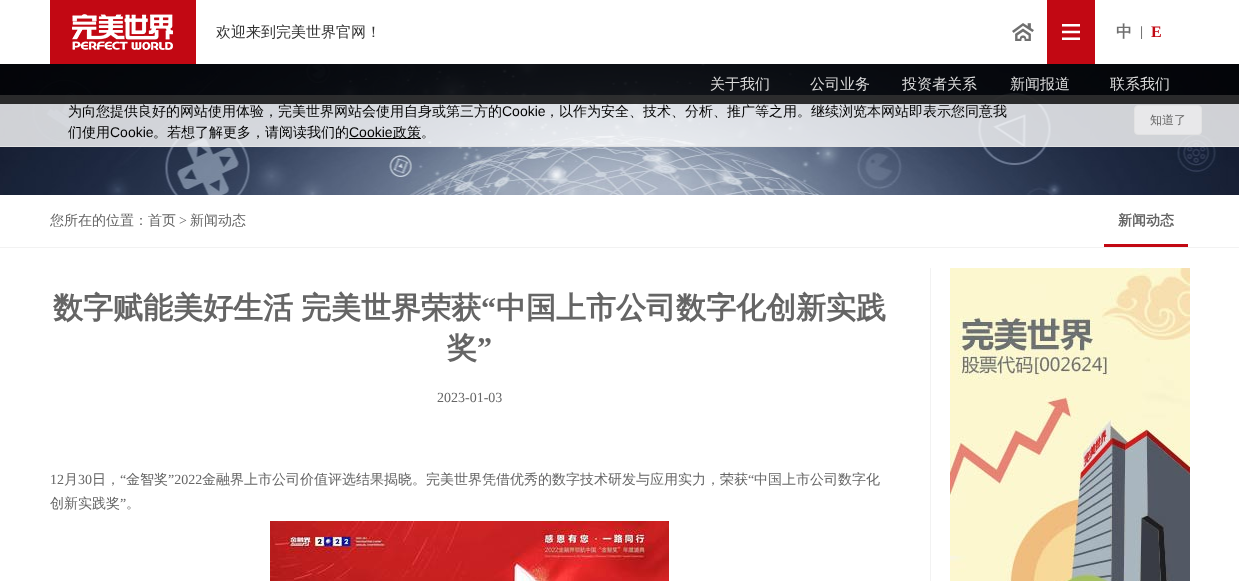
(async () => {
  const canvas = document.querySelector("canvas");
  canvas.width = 1239;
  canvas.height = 581;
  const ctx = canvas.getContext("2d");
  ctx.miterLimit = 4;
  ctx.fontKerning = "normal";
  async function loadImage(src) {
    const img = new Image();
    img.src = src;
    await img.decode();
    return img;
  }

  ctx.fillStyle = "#ffffff";
  ctx.fillRect(0, 0, 1239, 581);
  ctx.fillStyle = "#c20813";
  ctx.fillRect(50, 0, 146, 64);
  ctx.drawImage(await loadImage("img/1.png"), 72, 14, 101, 36);
  ctx.drawImage(await loadImage("img/2.png"), 1012, 23, 22, 18);
  ctx.fillRect(1047, 0, 48, 64);
  ctx.drawImage(await loadImage("img/3.png"), 1062, 24, 18, 16);
  ctx.drawImage(await loadImage("img/4.png"), 0, 64, 1239, 131);
  for (const [x, y, w, h, color] of [
    [0, 95, 1239, 51, "rgba(255, 255, 255, 0.8)"],
    [0, 64, 1239, 40, "rgba(0, 0, 0, 0.8)"],
    [0, 146, 1239, 1, "#e2e2e2"],
    [349, 138, 72, 1, "#000000"],
  ]) {
    ctx.fillStyle = color;
    ctx.fillRect(x, y, w, h);
  }
  ctx.fillStyle = "#e8e8ea";
  ctx.beginPath();
  ctx.roundRect(1134.5, 105.5, 67, 29, 3.5);
  ctx.fill();
  ctx.strokeStyle = "#e2e2e2";
  ctx.stroke();
  for (const [x, y, w, h, color] of [
    [0, 247, 1239, 1, "#f2f2f2"],
    [1104, 244, 84, 3, "#c20813"],
    [930, 268, 1, 313, "#f2f2f2"],
  ]) {
    ctx.fillStyle = color;
    ctx.fillRect(x, y, w, h);
  }
  ctx.drawImage(await loadImage("img/5.png"), 270, 521, 399, 60);
  ctx.drawImage(await loadImage("img/6.png"), 950, 268, 240, 313);
  ctx.font = "500 15px WenQuanYi Zen Hei";
  ctx.fillStyle = "#333333";
  ctx.fillText("欢迎来到完美世界官网！", 216, 37);
  ctx.font = "bold 16px WenQuanYi Zen Hei";
  ctx.fillStyle = "#6f6f6f";
  ctx.fillText("中", 1116, 37);
  ctx.font = "bold 14px Liberation Serif";
  ctx.fillText("|", 1140, 36);
  ctx.font = "bold 16px Liberation Serif";
  ctx.fillStyle = "#c20813";
  ctx.fillText("E", 1151, 37);
  ctx.font = "500 15px WenQuanYi Zen Hei";
  ctx.fillStyle = "#dadada";
  for (const [text, x, y] of [
    ["关于我们", 710, 89],
    ["公司业务", 810, 89],
    ["投资者关系", 902, 89],
    ["新闻报道", 1010, 89],
    ["联系我们", 1110, 89],
  ]) {
    ctx.fillText(text, x, y);
  }
  ctx.font = "500 14px WenQuanYi Zen Hei";
  ctx.fillStyle = "#000000";
  ctx.fillText("为向您提供良好的网站使用体验，完美世界网站会使用自身或第三方的", 68, 116);
  ctx.font = "14px Liberation Sans";
  ctx.fillText("Cookie", 502, 116);
  ctx.font = "500 14px WenQuanYi Zen Hei";
  ctx.fillText("，以作为安全、技术、分析、推广等之用。继续浏览本网站即表示您同意我", 545, 116);
  ctx.fillText("们使用", 68, 137);
  ctx.font = "14px Liberation Sans";
  ctx.fillText("Cookie", 110, 137);
  ctx.font = "500 14px WenQuanYi Zen Hei";
  ctx.fillText("。若想了解更多，请阅读我们的", 153, 137);
  ctx.font = "14px Liberation Sans";
  ctx.fillText("Cookie", 349, 137);
  ctx.font = "500 14px WenQuanYi Zen Hei";
  ctx.fillText("政策。", 393, 137);
  ctx.font = "500 12px WenQuanYi Zen Hei";
  ctx.fillStyle = "#656565";
  ctx.fillText("知道了", 1150, 124);
  ctx.font = "500 14px WenQuanYi Zen Hei";
  ctx.fillText("您所在的位置：首页", 50, 225);
  ctx.font = "14px Liberation Serif";
  ctx.fillText(">", 179, 225);
  ctx.font = "500 14px WenQuanYi Zen Hei";
  ctx.fillText("新闻动态", 190, 225);
  ctx.font = "bold 14px WenQuanYi Zen Hei";
  ctx.fillText("新闻动态", 1118, 225);
  ctx.wordSpacing = "-1px";
  ctx.font = "bold 30px WenQuanYi Zen Hei";
  ctx.fillText("数字赋能美好生活 完美世界荣获", 53, 318);
  ctx.wordSpacing = "0px";
  ctx.font = "bold 30px Liberation Serif";
  ctx.fillText("“", 481, 318);
  ctx.font = "bold 30px WenQuanYi Zen Hei";
  ctx.fillText("中国上市公司数字化创新实践", 496, 318);
  ctx.fillText("奖", 447, 358);
  ctx.font = "bold 30px Liberation Serif";
  ctx.fillText("”", 477, 358);
  ctx.font = "14px Liberation Serif";
  ctx.fillText("2023-01-03", 437, 402);
  ctx.fillText("12", 50, 484);
  ctx.font = "500 14px WenQuanYi Zen Hei";
  ctx.fillText("月", 64, 484);
  ctx.font = "14px Liberation Serif";
  ctx.fillText("30", 78, 484);
  ctx.font = "500 14px WenQuanYi Zen Hei";
  ctx.fillText("日，", 92, 484);
  ctx.font = "14px Liberation Serif";
  ctx.fillText("“", 120, 484);
  ctx.font = "500 14px WenQuanYi Zen Hei";
  ctx.fillText("金智奖", 126, 484);
  ctx.font = "14px Liberation Serif";
  ctx.fillText("”2022", 168, 484);
  ctx.font = "500 14px WenQuanYi Zen Hei";
  ctx.fillText("金融界上市公司价值评选结果揭晓。完美世界凭借优秀的数字技术研发与应用实力，荣获", 202, 484);
  ctx.font = "14px Liberation Serif";
  ctx.fillText("“", 748, 484);
  ctx.font = "500 14px WenQuanYi Zen Hei";
  ctx.fillText("中国上市公司数字化", 754, 484);
  ctx.fillText("创新实践奖", 50, 508);
  ctx.font = "14px Liberation Serif";
  ctx.fillText("”", 120, 508);
  ctx.font = "500 14px WenQuanYi Zen Hei";
  ctx.fillText("。", 126, 508);
})();
